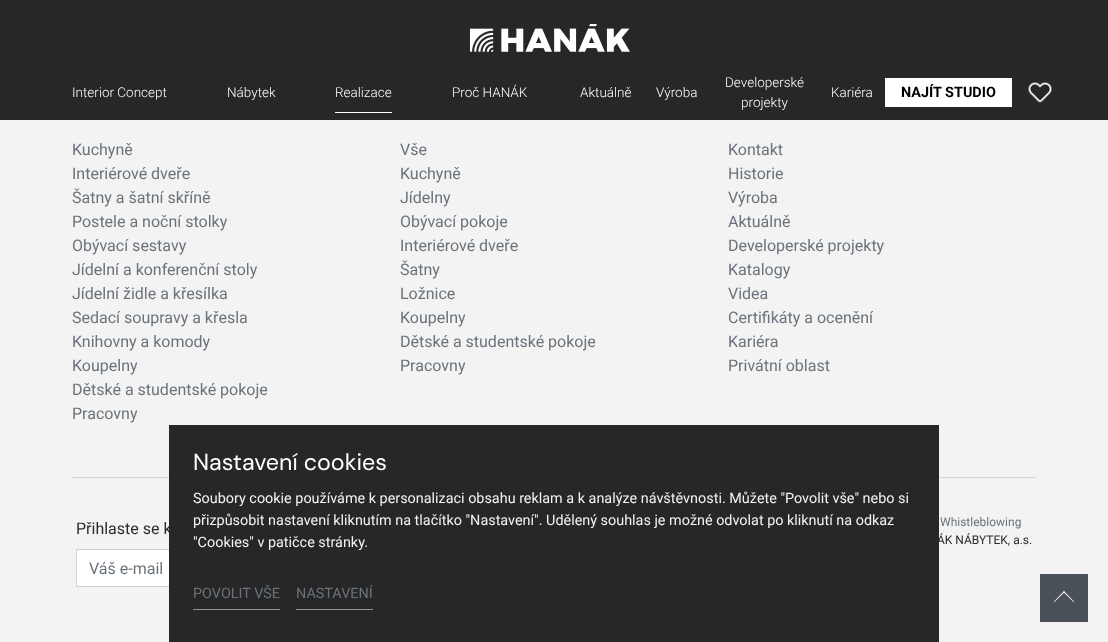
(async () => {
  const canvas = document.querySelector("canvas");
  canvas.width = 1108;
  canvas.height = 642;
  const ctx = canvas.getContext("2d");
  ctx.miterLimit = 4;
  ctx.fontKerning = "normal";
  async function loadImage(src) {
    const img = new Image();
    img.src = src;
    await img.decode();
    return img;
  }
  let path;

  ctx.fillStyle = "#f3f3f3";
  ctx.fillRect(0, 0, 1108, 642);
  ctx.fillStyle = "#272727";
  ctx.fillRect(0, 0, 1108, 120);
  ctx.drawImage(await loadImage("img/1.png"), 470, 24, 160, 28);
  ctx.fillStyle = "#ffffff";
  ctx.fillRect(335, 112, 57, 1);
  ctx.fillRect(885, 78, 127, 29);
  ctx.drawImage(await loadImage("img/2.png"), 1028, 82, 24, 21);
  ctx.fillStyle = "#d5d5d5";
  ctx.fillRect(72, 477, 964, 1);
  ctx.fillStyle = "#ffffff";
  ctx.fillRect(77, 550, 92, 36);
  ctx.strokeStyle = "#ced4da";
  ctx.strokeRect(76.5, 549.5, 208, 37);
  ctx.fillStyle = "#495057";
  ctx.fillRect(1040, 574, 48, 48);
  ctx.fillStyle = "#ffffff";
  path = new Path2D("M1064 591L1074 601.5L1073.5 602L1063.5 592Z");
  ctx.fill(path);
  path = new Path2D("M1064 591L1064.5 592L1054.5 602L1054 601.5Z");
  ctx.fill(path);
  ctx.font = "300 13.5px Roboto";
  for (const [text, x, y] of [
    ["Interior Concept", 72, 97],
    ["Nábytek", 227, 97],
    ["Realizace", 335, 97],
    ["Proč HANÁK", 452, 97],
    ["Aktuálně", 580, 97],
    ["Výroba", 656, 97],
    ["Developerské", 725, 87],
    ["projekty", 741, 107],
    ["Kariéra", 831, 97],
  ]) {
    ctx.fillText(text, x, y);
  }
  ctx.font = "bold 14.4px Roboto";
  ctx.fillStyle = "#000000";
  ctx.fillText("NAJÍT STUDIO", 901, 97);
  ctx.font = "16px Roboto";
  ctx.fillStyle = "#6a737b";
  for (const [text, x, y] of [
    ["Kuchyně", 72, 155],
    ["Interiérové dveře", 72, 179],
    ["Šatny a šatní skříně", 72, 203],
    ["Postele a noční stolky", 72, 227],
    ["Obývací sestavy", 72, 251],
    ["Jídelní a konferenční stoly", 72, 275],
    ["Jídelní židle a křesílka", 72, 299],
    ["Sedací soupravy a křesla", 72, 323],
    ["Knihovny a komody", 72, 347],
    ["Koupelny", 72, 371],
    ["Dětské a studentské pokoje", 72, 395],
    ["Pracovny", 72, 419],
    ["Vše", 400, 155],
    ["Kuchyně", 400, 179],
    ["Jídelny", 400, 203],
    ["Obývací pokoje", 400, 227],
    ["Interiérové dveře", 400, 251],
    ["Šatny", 400, 275],
    ["Ložnice", 400, 299],
    ["Koupelny", 400, 323],
    ["Dětské a studentské pokoje", 400, 347],
    ["Pracovny", 400, 371],
    ["Kontakt", 728, 155],
    ["Historie", 728, 179],
    ["Výroba", 728, 203],
    ["Aktuálně", 728, 227],
    ["Developerské projekty", 728, 251],
    ["Katalogy", 728, 275],
    ["Videa", 728, 299],
    ["Certifikáty a ocenění", 728, 323],
    ["Kariéra", 728, 347],
    ["Privátní oblast", 728, 371],
  ]) {
    ctx.fillText(text, x, y);
  }
  ctx.fillStyle = "#2b2b2b";
  ctx.fillText("Přihlaste se k", 76, 534);
  ctx.fillStyle = "#6a737b";
  ctx.fillText("Váš e-mail", 89, 574);
  ctx.font = "12px Roboto";
  ctx.fillText("Whistleblowing", 940, 526);
  ctx.fillStyle = "#2b2b2b";
  ctx.fillText("ÁK NÁBYTEK, a.s.", 937, 544);
  ctx.fillStyle = "#272727";
  ctx.fillRect(169, 425, 770, 217);
  ctx.font = "23.25px DM Sans";
  ctx.fillStyle = "#ffffff";
  ctx.fillText("Nastavení cookies", 193, 470);
  ctx.font = "14.4px Roboto";
  ctx.fillStyle = "#f3f3f3";
  for (const [text, x, y] of [
    ["Soubory cookie používáme k personalizaci obsahu reklam a k analýze návštěvnosti. Můžete \"Povolit vše\" nebo si", 193, 503],
    ["přizpůsobit nastavení kliknutím na tlačítko \"Nastavení\". Udělený souhlas je možné odvolat po kliknutí na odkaz", 193, 525],
    ["\"Cookies\" v patičce stránky.", 193, 547],
  ]) {
    ctx.fillText(text, x, y);
  }
  ctx.fillStyle = "#6a737b";
  ctx.fillText("POVOLIT VŠE", 193, 598);
  ctx.fillStyle = "#8b9399";
  ctx.fillRect(193, 609, 87, 1);
  ctx.fillStyle = "#6a737b";
  ctx.fillText("NASTAVENÍ", 296, 598);
  ctx.fillStyle = "#8b9399";
  ctx.fillRect(296, 609, 77, 1);
})();
